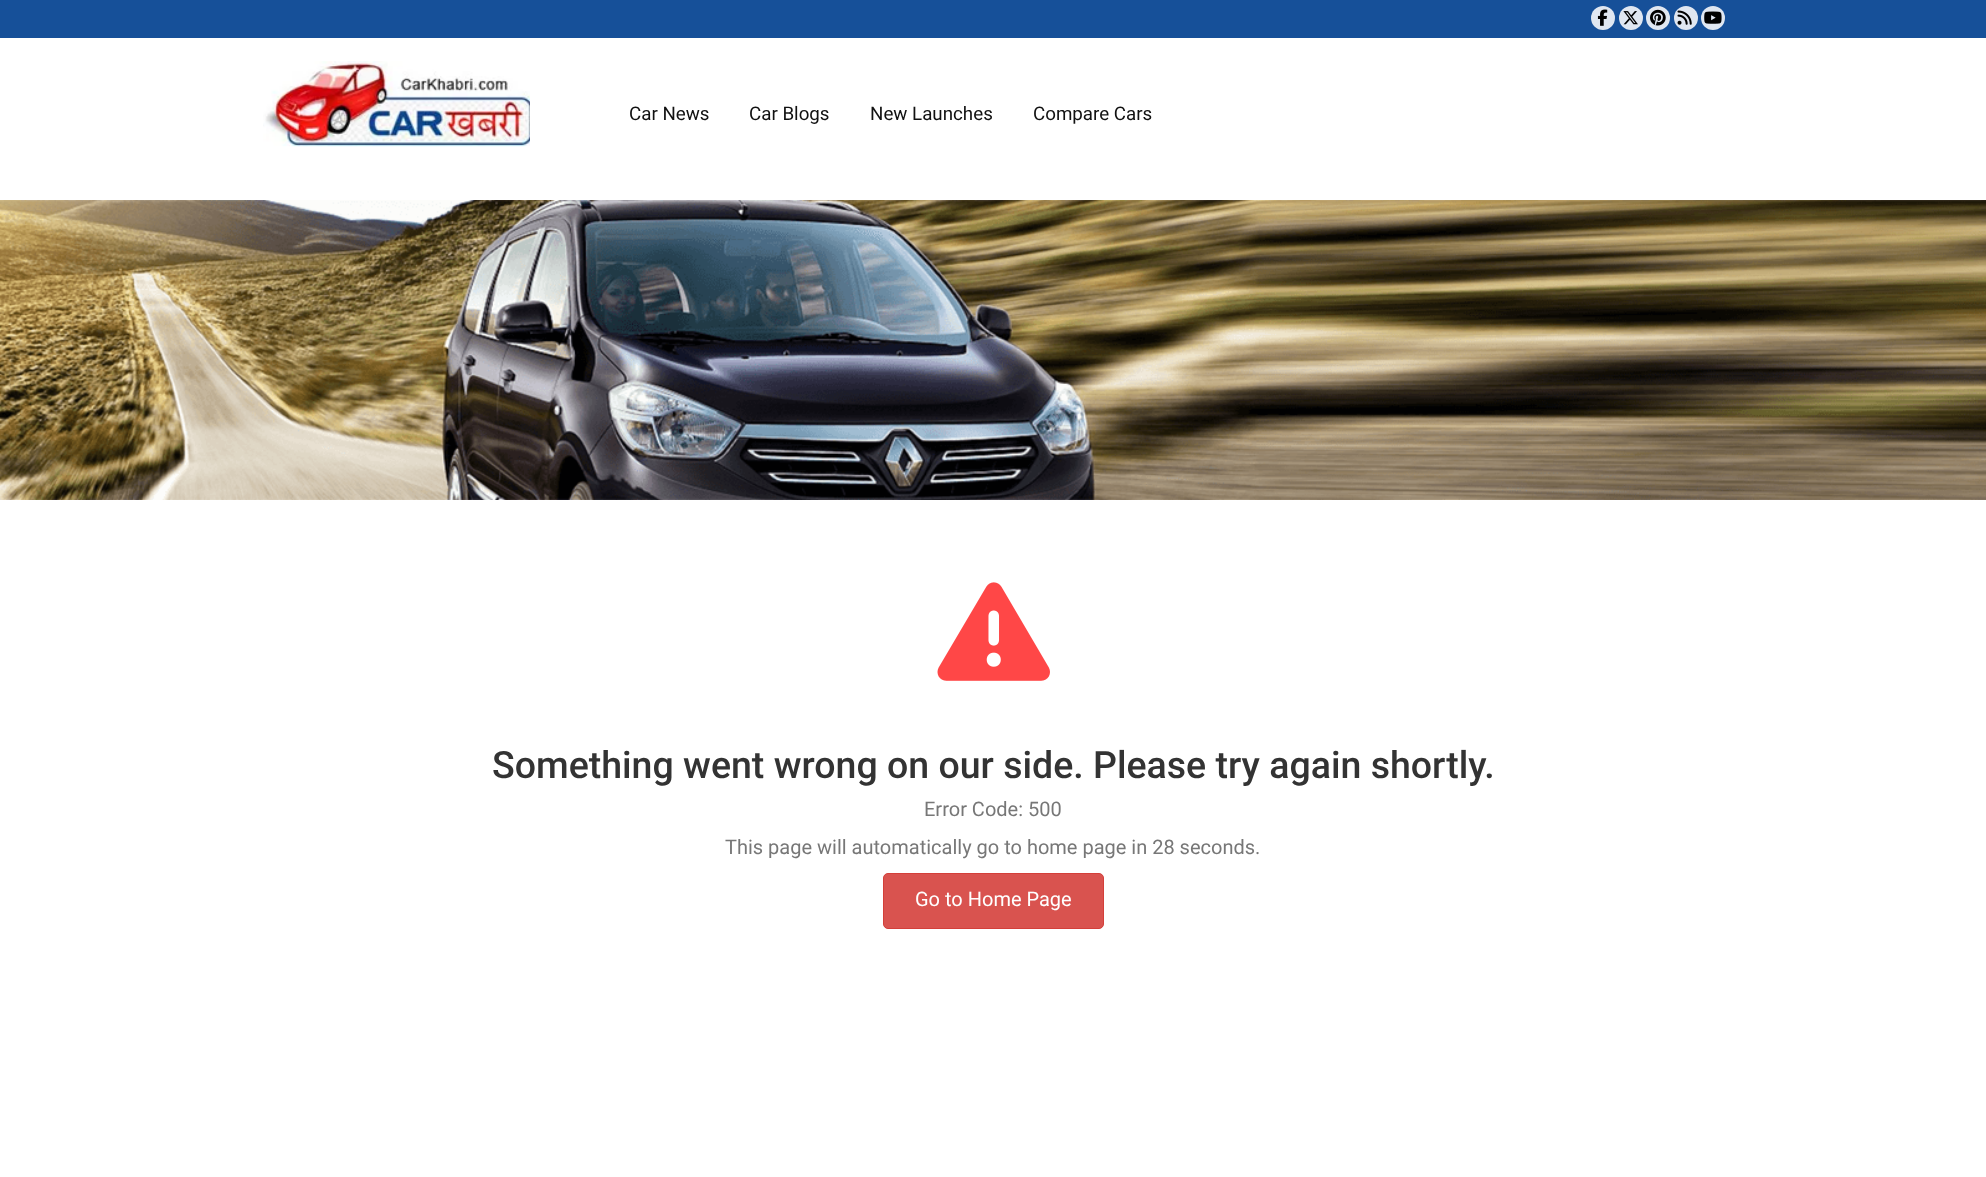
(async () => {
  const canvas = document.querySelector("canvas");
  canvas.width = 1986;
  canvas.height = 1177;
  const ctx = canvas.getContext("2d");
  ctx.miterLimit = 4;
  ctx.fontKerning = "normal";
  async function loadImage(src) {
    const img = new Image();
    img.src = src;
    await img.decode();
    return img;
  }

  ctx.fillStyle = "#ffffff";
  ctx.fillRect(0, 0, 1986, 1177);
  ctx.fillStyle = "#165099";
  ctx.fillRect(0, 0, 1986, 38);
  ctx.fillStyle = "#e0e7f1";
  ctx.beginPath();
  ctx.arc(1603, 18, 12, 0, Math.PI * 2);
  ctx.fill();
  ctx.drawImage(await loadImage("img/1.png"), 1597, 9, 11, 17);
  ctx.beginPath();
  ctx.arc(1631, 18, 12, 0, Math.PI * 2);
  ctx.fill();
  ctx.drawImage(await loadImage("img/2.png"), 1623, 11, 15, 14);
  ctx.beginPath();
  ctx.arc(1658, 18, 12, 0, Math.PI * 2);
  ctx.fill();
  ctx.drawImage(await loadImage("img/3.png"), 1650, 9, 16, 17);
  ctx.beginPath();
  ctx.arc(1686, 18, 12, 0, Math.PI * 2);
  ctx.fill();
  ctx.drawImage(await loadImage("img/4.png"), 1677, 10, 15, 15);
  ctx.beginPath();
  ctx.arc(1713, 18, 12, 0, Math.PI * 2);
  ctx.fill();
  ctx.drawImage(await loadImage("img/5.png"), 1704, 11, 18, 13);
  ctx.drawImage(await loadImage("img/6.png"), 263, 61, 267, 86);
  ctx.drawImage(await loadImage("img/7.png"), 0, 200, 1986, 300);
  ctx.drawImage(await loadImage("img/8.png"), 937, 582, 113, 99);
  ctx.fillStyle = "#d9534f";
  ctx.beginPath();
  ctx.roundRect(883.5, 873.5, 220, 55, 4.5);
  ctx.fill();
  ctx.strokeStyle = "#d43f3a";
  ctx.stroke();
  ctx.font = "18.75px Roboto";
  ctx.fillStyle = "#111111";
  for (const [text, x, y] of [
    ["Car News", 629, 120],
    ["Car Blogs", 749, 120],
    ["New Launches", 870, 120],
    ["Compare Cars", 1033, 120],
  ]) {
    ctx.fillText(text, x, y);
  }
  ctx.font = "500 37.5px Roboto";
  ctx.fillStyle = "#333333";
  ctx.fillText("Something went wrong on our side. Please try again shortly.", 492, 778);
  ctx.font = "20px Roboto";
  ctx.fillStyle = "#777777";
  ctx.fillText("Error Code: 500", 924, 816);
  ctx.fillText("This page will automatically go to home page in 28 seconds.", 725, 854);
  ctx.fillStyle = "#ffffff";
  ctx.fillText("Go to Home Page", 915, 906);
})();
